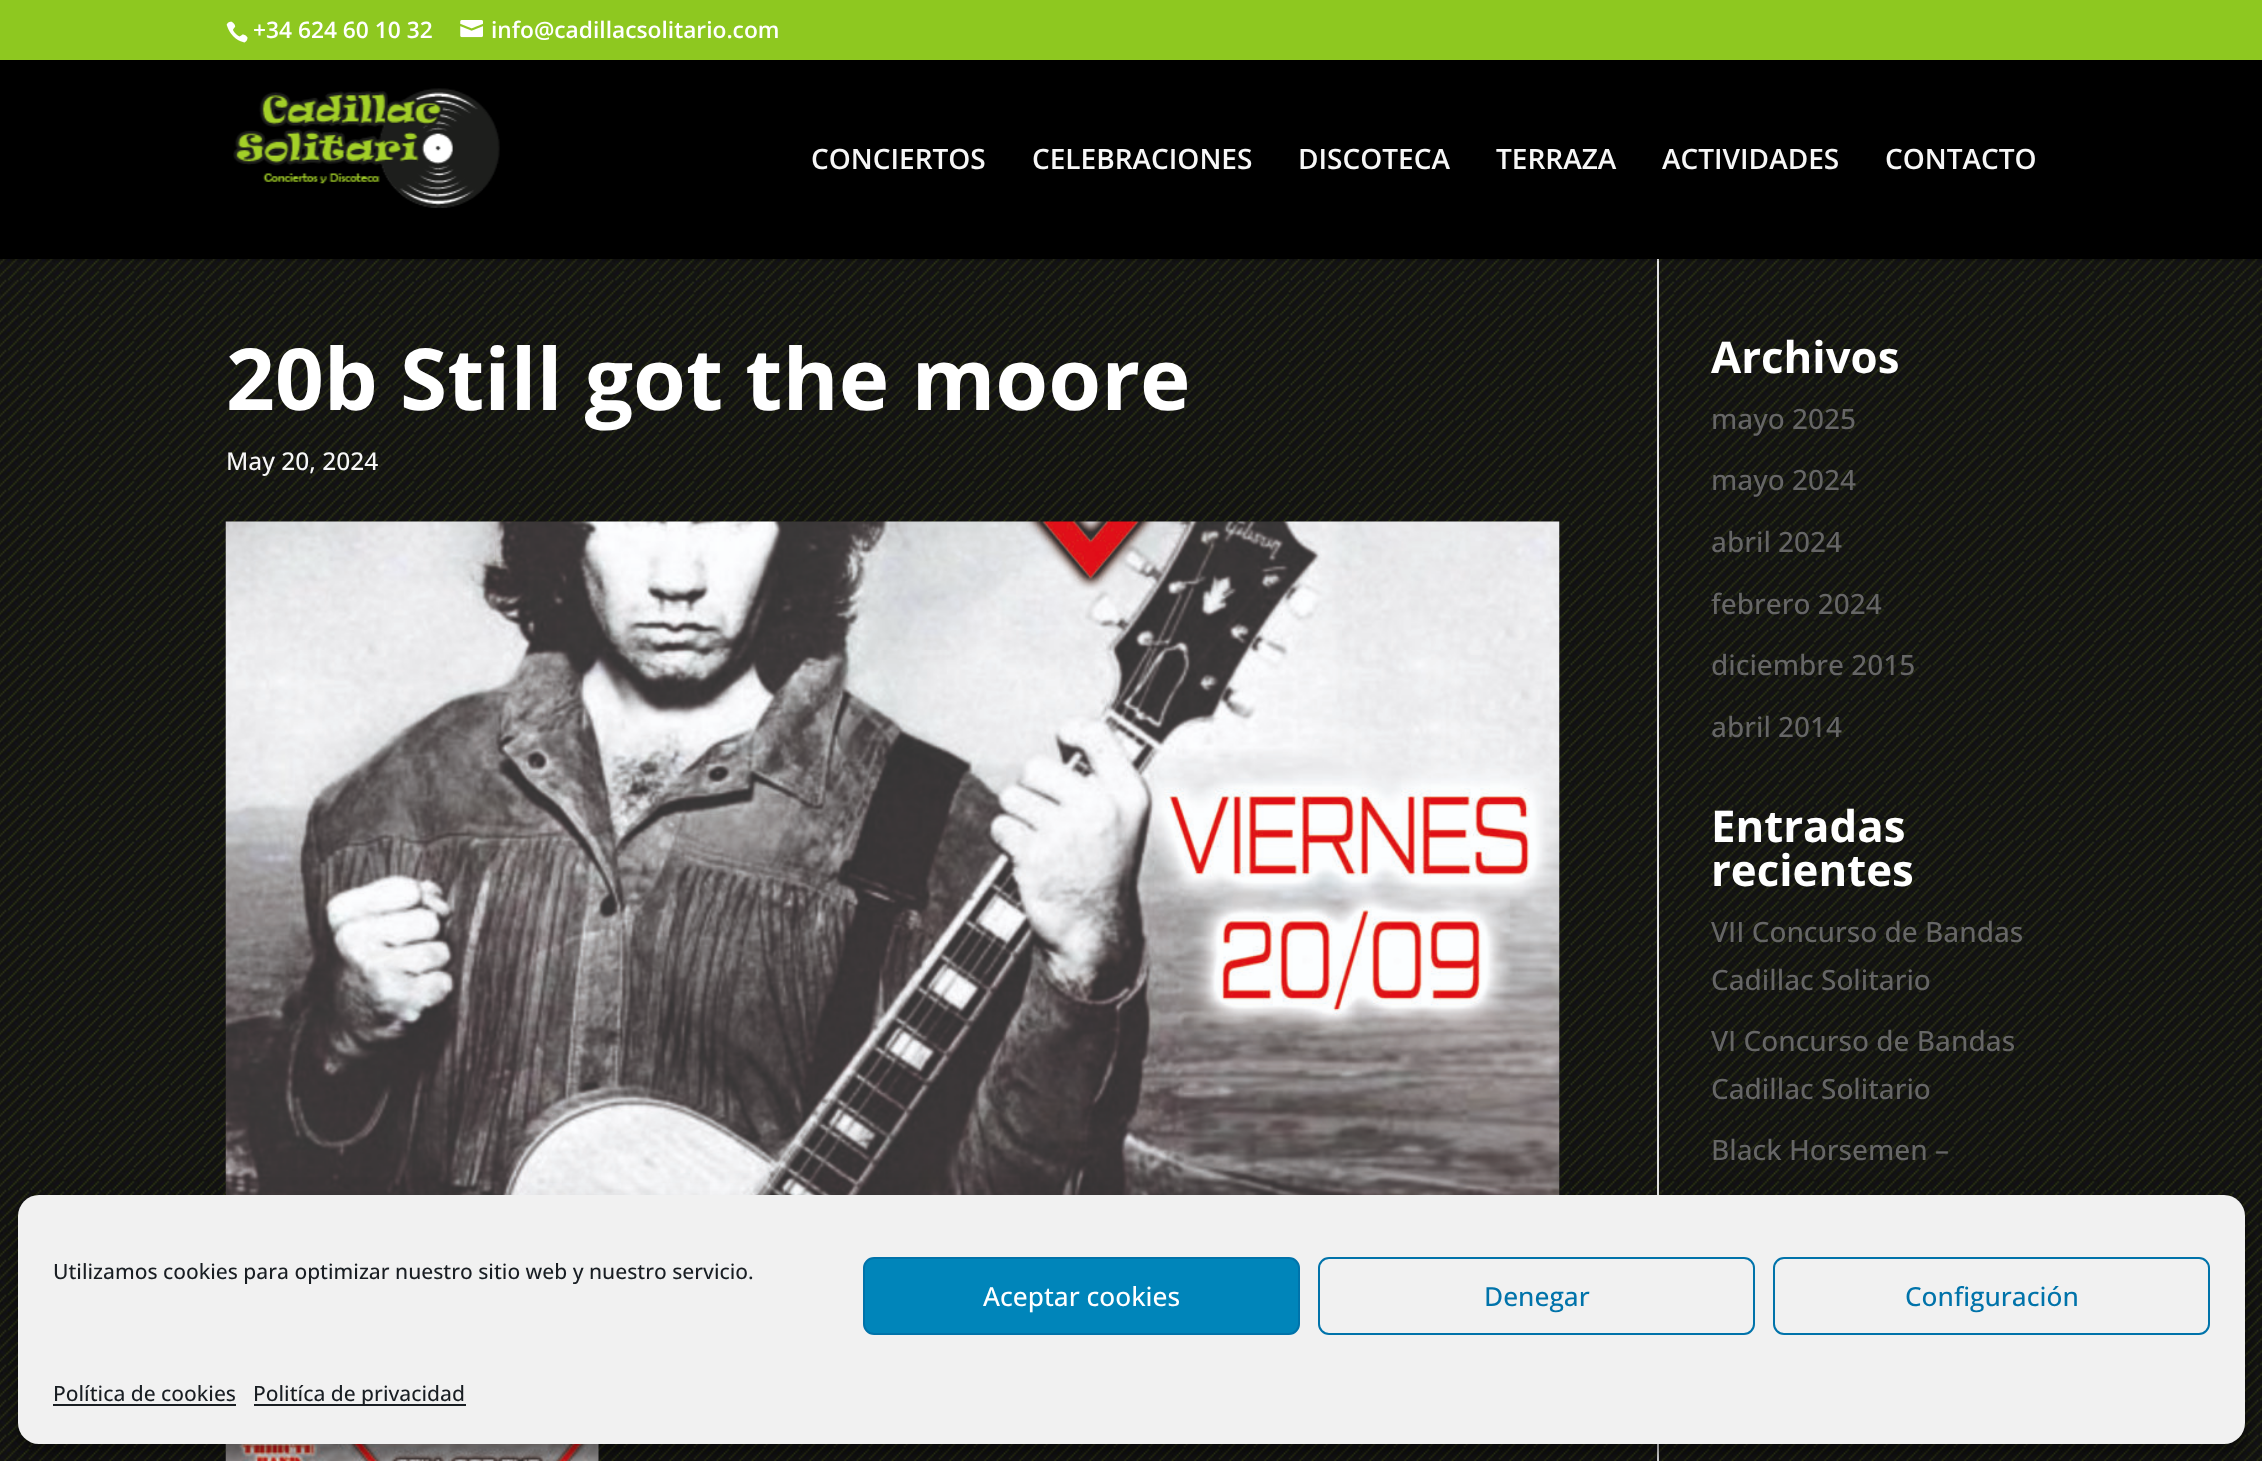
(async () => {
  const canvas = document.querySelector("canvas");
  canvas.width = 2262;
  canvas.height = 1461;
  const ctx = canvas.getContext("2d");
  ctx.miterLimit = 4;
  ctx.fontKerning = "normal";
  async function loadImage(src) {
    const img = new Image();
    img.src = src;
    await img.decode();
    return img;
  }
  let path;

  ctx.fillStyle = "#ffffff";
  ctx.fillRect(0, 0, 2262, 1461);
  ctx.drawImage(await loadImage("img/1.png"), 0, 259, 2262, 1202);
  ctx.fillStyle = "#8ec820";
  ctx.fillRect(0, 0, 2262, 60);
  ctx.drawImage(await loadImage("img/2.png"), 226, 21, 22, 22);
  ctx.drawImage(await loadImage("img/3.png"), 460, 20, 23, 18);
  ctx.fillStyle = "#e2e2e2";
  ctx.fillRect(1657, 259, 2, 1202);
  ctx.fillStyle = "rgba(0, 0, 0, 0.1)";
  path = new Path2D("M0 259V261H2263V61V259Z");
  ctx.fill(path);
  ctx.fillStyle = "#000000";
  ctx.fillRect(0, 60, 2262, 199);
  ctx.drawImage(await loadImage("img/4.png"), 233, 88, 267, 120);
  ctx.drawImage(await loadImage("img/5.png"), 225, 521, 1335, 674);
  ctx.drawImage(await loadImage("img/6.png"), 225, 1444, 374, 17);
  ctx.fillStyle = "rgba(0, 0, 0, 0.23)";
  ctx.filter = "blur(5px)";
  ctx.beginPath();
  ctx.roundRect(18, 1206, 2227, 248, 21);
  ctx.fill();
  ctx.filter = "none";
  ctx.fillStyle = "rgba(0, 0, 0, 0.19)";
  ctx.filter = "blur(17.5px)";
  ctx.beginPath();
  ctx.roundRect(18, 1213, 2227, 248, 21);
  ctx.fill();
  ctx.filter = "none";
  ctx.fillStyle = "#f1f1f1";
  ctx.beginPath();
  ctx.roundRect(18, 1195, 2227, 249, 21);
  ctx.fill();
  ctx.fillStyle = "#0085ba";
  ctx.beginPath();
  ctx.roundRect(864, 1258, 435, 76, 10);
  ctx.fill();
  ctx.strokeStyle = "#0073aa";
  ctx.lineWidth = 2;
  ctx.stroke();
  ctx.beginPath();
  ctx.roundRect(1319, 1258, 435, 76, 10);
  ctx.stroke();
  ctx.beginPath();
  ctx.roundRect(1774, 1258, 435, 76, 10);
  ctx.stroke();
  ctx.fillStyle = "#191e23";
  ctx.fillRect(53, 1404, 183, 2);
  ctx.fillRect(254, 1404, 212, 2);
  ctx.font = "600 22.75px Open Sans";
  ctx.fillStyle = "#ffffff";
  ctx.fillText("+34 624 60 10 32", 253, 38);
  ctx.fillText("info@cadillacsolitario.com", 491, 38);
  ctx.font = "600 28px Open Sans";
  ctx.fillStyle = "#f7f7f7";
  for (const [text, x, y] of [
    ["CONCIERTOS", 811, 169],
    ["CELEBRACIONES", 1032, 169],
    ["DISCOTECA", 1298, 169],
    ["TERRAZA", 1496, 169],
    ["ACTIVIDADES", 1662, 169],
    ["CONTACTO", 1885, 169],
  ]) {
    ctx.fillText(text, x, y);
  }
  ctx.font = "bold 85.5px Open Sans";
  ctx.fillStyle = "#ffffff";
  ctx.fillText("20b Still got the moore", 226, 410);
  ctx.font = "500 24.5px Open Sans";
  ctx.fillStyle = "#f7f7f7";
  ctx.fillText("May 20, 2024", 226, 470);
  ctx.font = "bold 43.75px Open Sans";
  ctx.fillStyle = "#ffffff";
  ctx.fillText("Archivos", 1711, 373);
  ctx.font = "500 28px Open Sans";
  ctx.fillStyle = "#666666";
  for (const [text, x, y] of [
    ["mayo 2025", 1711, 429],
    ["mayo 2024", 1711, 490],
    ["abril 2024", 1711, 552],
    ["febrero 2024", 1711, 614],
    ["diciembre 2015", 1711, 675],
    ["abril 2014", 1711, 737],
  ]) {
    ctx.fillText(text, x, y);
  }
  ctx.font = "bold 43.75px Open Sans";
  ctx.fillStyle = "#ffffff";
  ctx.fillText("Entradas", 1711, 842);
  ctx.fillText("recientes", 1711, 886);
  ctx.font = "500 28px Open Sans";
  ctx.fillStyle = "#666666";
  for (const [text, x, y] of [
    ["VII Concurso de Bandas", 1711, 942],
    ["Cadillac Solitario", 1711, 990],
    ["VI Concurso de Bandas", 1711, 1051],
    ["Cadillac Solitario", 1711, 1099],
    ["Black Horsemen –", 1711, 1160],
  ]) {
    ctx.fillText(text, x, y);
  }
  ctx.font = "500 21px Open Sans";
  ctx.fillStyle = "#191e23";
  ctx.fillText("Utilizamos cookies para optimizar nuestro sitio web y nuestro servicio.", 53, 1279);
  ctx.font = "500 26.25px Open Sans";
  ctx.fillStyle = "#ffffff";
  ctx.fillText("Aceptar cookies", 983, 1306);
  ctx.fillStyle = "#0073aa";
  ctx.fillText("Denegar", 1484, 1306);
  ctx.fillText("Configuración", 1905, 1306);
  ctx.font = "500 21px Open Sans";
  ctx.fillStyle = "#191e23";
  ctx.fillText("Política de cookies", 53, 1401);
  ctx.fillText("Politíca de privacidad", 253, 1401);
})();
